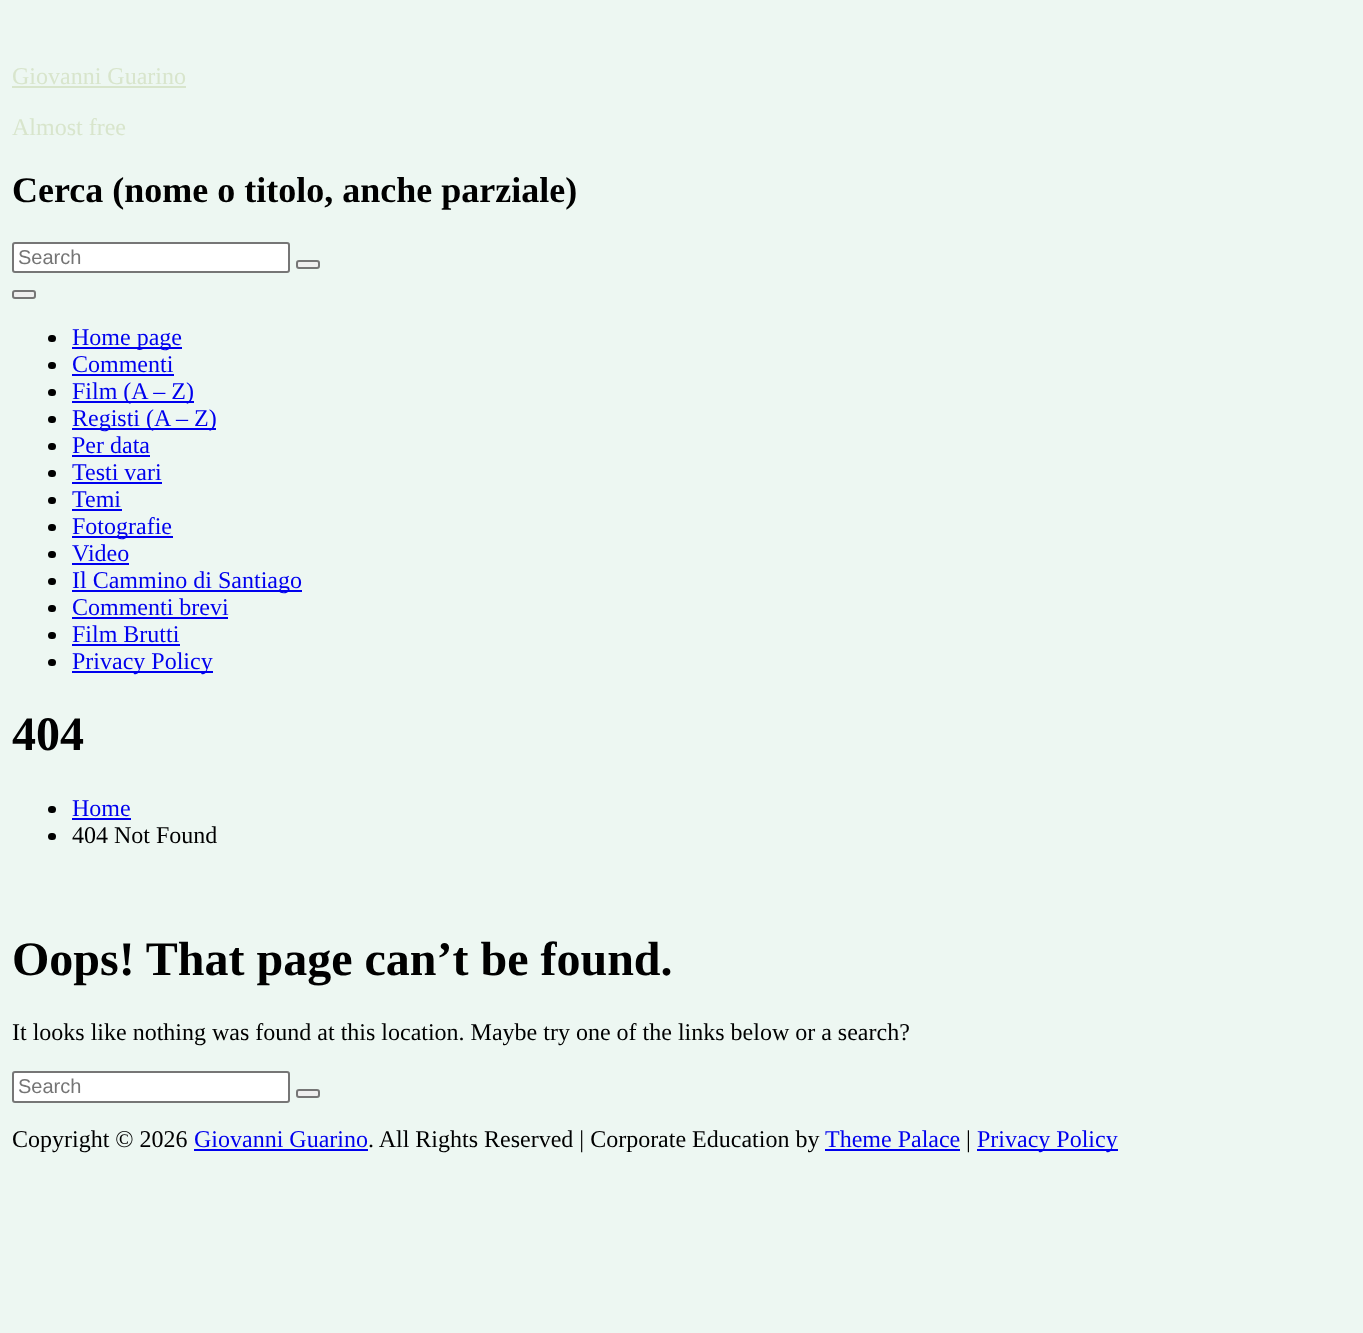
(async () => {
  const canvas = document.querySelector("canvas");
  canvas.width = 1363;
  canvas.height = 1333;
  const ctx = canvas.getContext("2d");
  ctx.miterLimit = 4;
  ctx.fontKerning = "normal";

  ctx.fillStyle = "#edf7f2";
  ctx.fillRect(0, 0, 1363, 1333);
  ctx.fillStyle = "#d8e5cc";
  ctx.fillRect(12, 86, 174, 2);
  ctx.fillStyle = "#ffffff";
  ctx.beginPath();
  ctx.roundRect(13, 243, 276, 29, 2);
  ctx.fill();
  ctx.strokeStyle = "#767676";
  ctx.lineWidth = 2;
  ctx.stroke();
  ctx.fillStyle = "#efefef";
  ctx.beginPath();
  ctx.roundRect(297, 261, 22, 7, 2);
  ctx.fill();
  ctx.stroke();
  ctx.beginPath();
  ctx.roundRect(13, 291, 22, 7, 2);
  ctx.fill();
  ctx.stroke();
  ctx.fillStyle = "#000000";
  ctx.beginPath();
  ctx.roundRect(48, 335, 8, 7, 3.5);
  ctx.fill();
  ctx.fillStyle = "#0000ee";
  ctx.fillRect(72, 347, 110, 2);
  ctx.fillStyle = "#000000";
  ctx.beginPath();
  ctx.roundRect(48, 362, 8, 7, 3.5);
  ctx.fill();
  ctx.fillStyle = "#0000ee";
  ctx.fillRect(72, 374, 102, 2);
  ctx.fillStyle = "#000000";
  ctx.beginPath();
  ctx.roundRect(48, 389, 8, 7, 3.5);
  ctx.fill();
  ctx.fillStyle = "#0000ee";
  ctx.fillRect(72, 401, 122, 2);
  ctx.fillStyle = "#000000";
  ctx.beginPath();
  ctx.roundRect(48, 416, 8, 7, 3.5);
  ctx.fill();
  ctx.fillStyle = "#0000ee";
  ctx.fillRect(72, 428, 144, 2);
  ctx.fillStyle = "#000000";
  ctx.beginPath();
  ctx.roundRect(48, 443, 8, 7, 3.5);
  ctx.fill();
  ctx.fillStyle = "#0000ee";
  ctx.fillRect(72, 455, 78, 2);
  ctx.fillStyle = "#000000";
  ctx.beginPath();
  ctx.roundRect(48, 470, 8, 7, 3.5);
  ctx.fill();
  ctx.fillStyle = "#0000ee";
  ctx.fillRect(72, 482, 90, 2);
  ctx.fillStyle = "#000000";
  ctx.beginPath();
  ctx.roundRect(48, 497, 8, 7, 3.5);
  ctx.fill();
  ctx.fillStyle = "#0000ee";
  ctx.fillRect(72, 509, 50, 2);
  ctx.fillStyle = "#000000";
  ctx.beginPath();
  ctx.roundRect(48, 524, 8, 7, 3.5);
  ctx.fill();
  ctx.fillStyle = "#0000ee";
  ctx.fillRect(72, 536, 101, 2);
  ctx.fillStyle = "#000000";
  ctx.beginPath();
  ctx.roundRect(48, 551, 8, 7, 3.5);
  ctx.fill();
  ctx.fillStyle = "#0000ee";
  ctx.fillRect(72, 563, 57, 2);
  ctx.fillStyle = "#000000";
  ctx.beginPath();
  ctx.roundRect(48, 578, 8, 7, 3.5);
  ctx.fill();
  ctx.fillStyle = "#0000ee";
  ctx.fillRect(72, 590, 230, 2);
  ctx.fillStyle = "#000000";
  ctx.beginPath();
  ctx.roundRect(48, 605, 8, 7, 3.5);
  ctx.fill();
  ctx.fillStyle = "#0000ee";
  ctx.fillRect(72, 617, 156, 2);
  ctx.fillStyle = "#000000";
  ctx.beginPath();
  ctx.roundRect(48, 632, 8, 7, 3.5);
  ctx.fill();
  ctx.fillStyle = "#0000ee";
  ctx.fillRect(72, 644, 108, 2);
  ctx.fillStyle = "#000000";
  ctx.beginPath();
  ctx.roundRect(48, 659, 8, 7, 3.5);
  ctx.fill();
  ctx.fillStyle = "#0000ee";
  ctx.fillRect(72, 671, 141, 2);
  ctx.fillStyle = "#000000";
  ctx.beginPath();
  ctx.roundRect(48, 806, 8, 7, 3.5);
  ctx.fill();
  ctx.fillStyle = "#0000ee";
  ctx.fillRect(72, 818, 59, 2);
  ctx.fillStyle = "#000000";
  ctx.beginPath();
  ctx.roundRect(48, 833, 8, 7, 3.5);
  ctx.fill();
  ctx.fillStyle = "#ffffff";
  ctx.beginPath();
  ctx.roundRect(13, 1072, 276, 30, 2);
  ctx.fill();
  ctx.stroke();
  ctx.fillStyle = "#efefef";
  ctx.beginPath();
  ctx.roundRect(297, 1090, 22, 7, 2);
  ctx.fill();
  ctx.stroke();
  for (const [x, y, w, h, color] of [
    [194, 1149, 174, 2, "#0000ee"],
    [825, 1149, 135, 2, "#0000ee"],
    [977, 1149, 141, 2, "#0000ee"],
  ]) {
    ctx.fillStyle = color;
    ctx.fillRect(x, y, w, h);
  }
  ctx.font = "24px Liberation Serif";
  ctx.fillStyle = "#d8e5cc";
  ctx.fillText("Giovanni Guarino", 12, 84);
  ctx.fillText("Almost free", 12, 135);
  ctx.font = "bold 36px Liberation Serif";
  ctx.fillStyle = "#000000";
  ctx.fillText("Cerca (nome o titolo, anche parziale)", 12, 202);
  ctx.font = "20px Liberation Sans";
  ctx.fillStyle = "#757575";
  ctx.fillText("Search", 18, 264);
  ctx.font = "24px Liberation Serif";
  ctx.fillStyle = "#0000ee";
  for (const [text, x, y] of [
    ["Home page", 72, 345],
    ["Commenti", 72, 372],
    ["Film (A – Z)", 72, 399],
    ["Registi (A – Z)", 72, 426],
    ["Per data", 72, 453],
    ["Testi vari", 72, 480],
    ["Temi", 72, 507],
    ["Fotografie", 72, 534],
    ["Video", 72, 561],
    ["Il Cammino di Santiago", 72, 588],
    ["Commenti brevi", 72, 615],
    ["Film Brutti", 72, 642],
    ["Privacy Policy", 72, 669],
  ]) {
    ctx.fillText(text, x, y);
  }
  ctx.font = "bold 48px Liberation Serif";
  ctx.fillStyle = "#000000";
  ctx.fillText("404", 12, 750);
  ctx.font = "24px Liberation Serif";
  ctx.fillStyle = "#0000ee";
  ctx.fillText("Home", 72, 816);
  ctx.fillStyle = "#000000";
  ctx.fillText("404 Not Found", 72, 843);
  ctx.font = "bold 48px Liberation Serif";
  ctx.fillText("Oops! That page can’t be found.", 12, 975);
  ctx.font = "24px Liberation Serif";
  ctx.fillText("It looks like nothing was found at this location. Maybe try one of the links below or a search?", 12, 1040);
  ctx.font = "20px Liberation Sans";
  ctx.fillStyle = "#757575";
  ctx.fillText("Search", 18, 1093);
  ctx.font = "24px Liberation Serif";
  ctx.fillStyle = "#000000";
  ctx.fillText("Copyright © 2026", 12, 1147);
  ctx.fillStyle = "#0000ee";
  ctx.fillText("Giovanni Guarino", 194, 1147);
  ctx.fillStyle = "#000000";
  ctx.fillText(". All Rights Reserved | Corporate Education by", 368, 1147);
  ctx.fillStyle = "#0000ee";
  ctx.fillText("Theme Palace", 825, 1147);
  ctx.fillStyle = "#000000";
  ctx.fillText("|", 966, 1147);
  ctx.fillStyle = "#0000ee";
  ctx.fillText("Privacy Policy", 977, 1147);
})();
